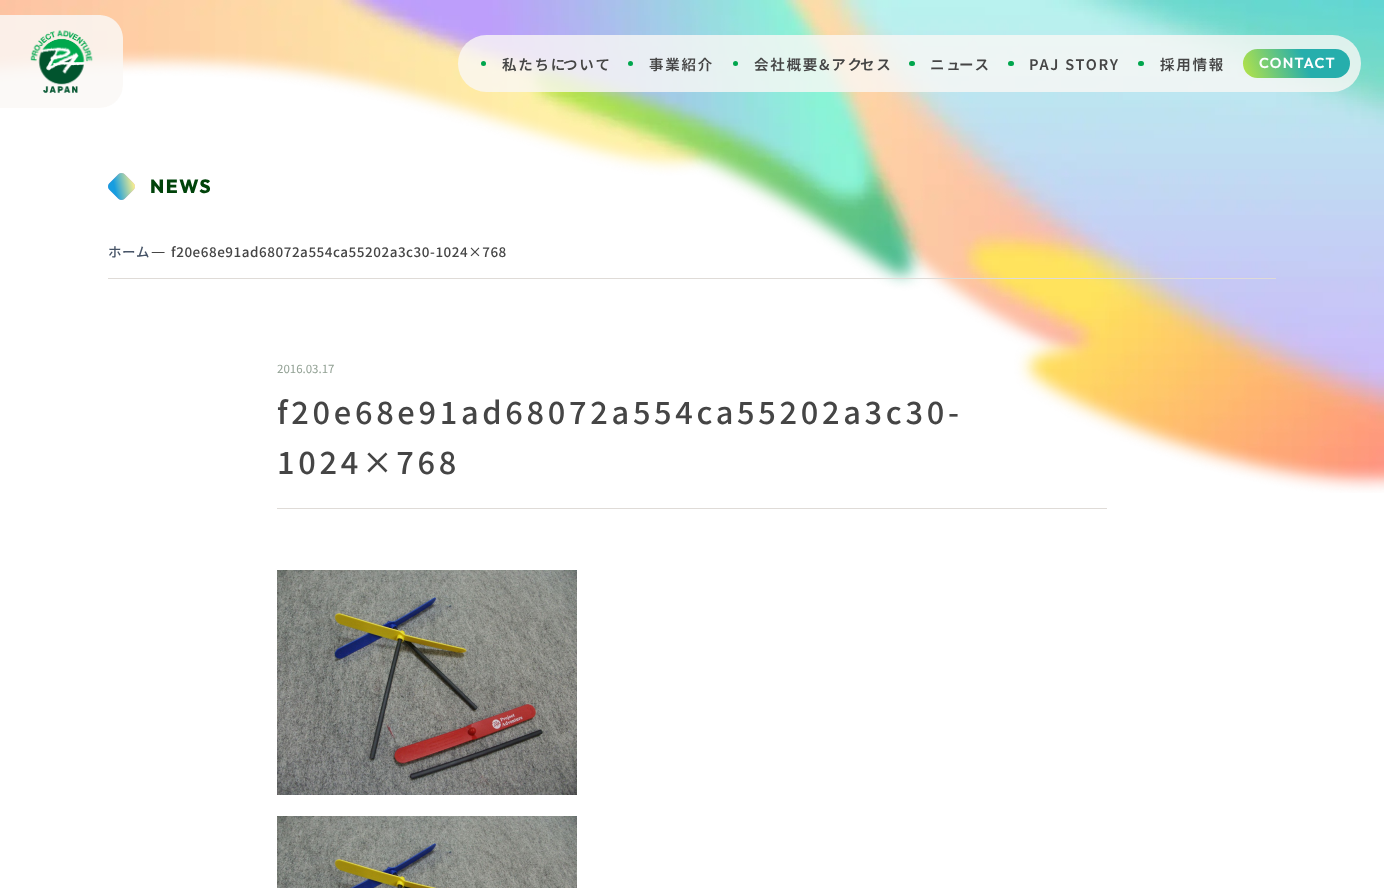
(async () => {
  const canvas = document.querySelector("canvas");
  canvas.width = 1384;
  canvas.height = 888;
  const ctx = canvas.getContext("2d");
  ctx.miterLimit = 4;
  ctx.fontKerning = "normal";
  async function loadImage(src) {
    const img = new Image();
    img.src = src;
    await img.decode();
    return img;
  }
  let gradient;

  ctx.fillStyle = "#ffffff";
  ctx.fillRect(0, 0, 1384, 888);
  ctx.drawImage(await loadImage("img/2.png"), 0, 0, 1384, 493);
  ctx.fillStyle = "rgba(250, 248, 245, 0.2)";
  ctx.beginPath();
  ctx.roundRect(0, 15, 123, 93, [0, 23, 23, 0]);
  ctx.fill();
  ctx.drawImage(await loadImage("img/1.png"), 0, 15, 123, 93);
  ctx.fillStyle = "rgba(250, 248, 245, 0.8)";
  ctx.beginPath();
  ctx.roundRect(458, 35, 903, 57, 28.5);
  ctx.fill();
  ctx.fillStyle = "#00a64d";
  ctx.beginPath();
  ctx.arc(483.5, 63.5, 2.5, 0, Math.PI * 2);
  ctx.fill();
  ctx.beginPath();
  ctx.arc(630.5, 63.5, 2.5, 0, Math.PI * 2);
  ctx.fill();
  ctx.beginPath();
  ctx.arc(735.5, 63.5, 2.5, 0, Math.PI * 2);
  ctx.fill();
  ctx.beginPath();
  ctx.roundRect(909, 61, 6, 5, 2.5);
  ctx.fill();
  ctx.beginPath();
  ctx.roundRect(1008, 61, 6, 5, 2.5);
  ctx.fill();
  ctx.beginPath();
  ctx.roundRect(1138, 61, 6, 5, 2.5);
  ctx.fill();
  gradient = ctx.createLinearGradient(1245, 84, 1348, 43);
  gradient.addColorStop(0, "#b8e446");
  gradient.addColorStop(0.58, "#26aeac");
  ctx.fillStyle = gradient;
  ctx.beginPath();
  ctx.roundRect(1243, 49, 107, 29, 14.5);
  ctx.fill();
  ctx.drawImage(await loadImage("img/3.png"), 108, 173, 27, 27);
  ctx.fillStyle = "#dfdbd7";
  ctx.fillRect(108, 278, 1168, 1);
  ctx.fillRect(277, 508, 830, 1);
  ctx.drawImage(await loadImage("img/4.png"), 277, 570, 300, 225);
  ctx.drawImage(await loadImage("img/5.png"), 277, 816, 300, 72);
  ctx.letterSpacing = "1.75px";
  ctx.font = "600 14.5px Noto Sans JP";
  ctx.fillStyle = "#454545";
  for (const [text, x, y] of [
    ["私たちに", 502, 70],
    ["ついて", 563, 70],
    ["事業紹介", 649, 70],
    ["会社概要&アク", 754, 70],
    ["セス", 860, 70],
    ["ニュ", 930, 70],
    ["ース", 959, 70],
    ["PAJ STORY", 1029, 70],
    ["採用情報", 1160, 70],
  ]) {
    ctx.fillText(text, x, y);
  }
  ctx.letterSpacing = "1.25px";
  ctx.font = "600 14.5px Outfit";
  ctx.fillStyle = "#fdfeff";
  ctx.fillText("CONTACT", 1259, 68);
  ctx.letterSpacing = "1.5px";
  ctx.font = "800 19px Outfit";
  ctx.fillStyle = "#00430a";
  ctx.fillText("NEWS", 150, 193);
  ctx.letterSpacing = "0.55px";
  ctx.font = "500 13.45px Noto Sans JP";
  ctx.fillStyle = "#475467";
  ctx.fillText("ホーム", 108, 257);
  ctx.letterSpacing = "0px";
  ctx.font = "16px Noto Sans JP";
  ctx.fillStyle = "#454545";
  ctx.fillText("—", 151, 257);
  ctx.letterSpacing = "0.55px";
  ctx.font = "500 13.45px Noto Sans JP";
  ctx.fillText("f20e68e91ad68072a554ca55202a3c30-1024×768", 171, 257);
  ctx.letterSpacing = "0px";
  ctx.font = "11.5px Noto Sans JP";
  ctx.fillStyle = "#92a194";
  ctx.fillText("2016.03.17", 277, 373);
  ctx.letterSpacing = "3.7px";
  ctx.font = "500 30.75px Noto Sans JP";
  ctx.fillStyle = "#454545";
  ctx.fillText("f20e68e91ad68072a554ca55202a3c30-", 277, 424);
  ctx.fillText("1024×768", 277, 474);
})();
